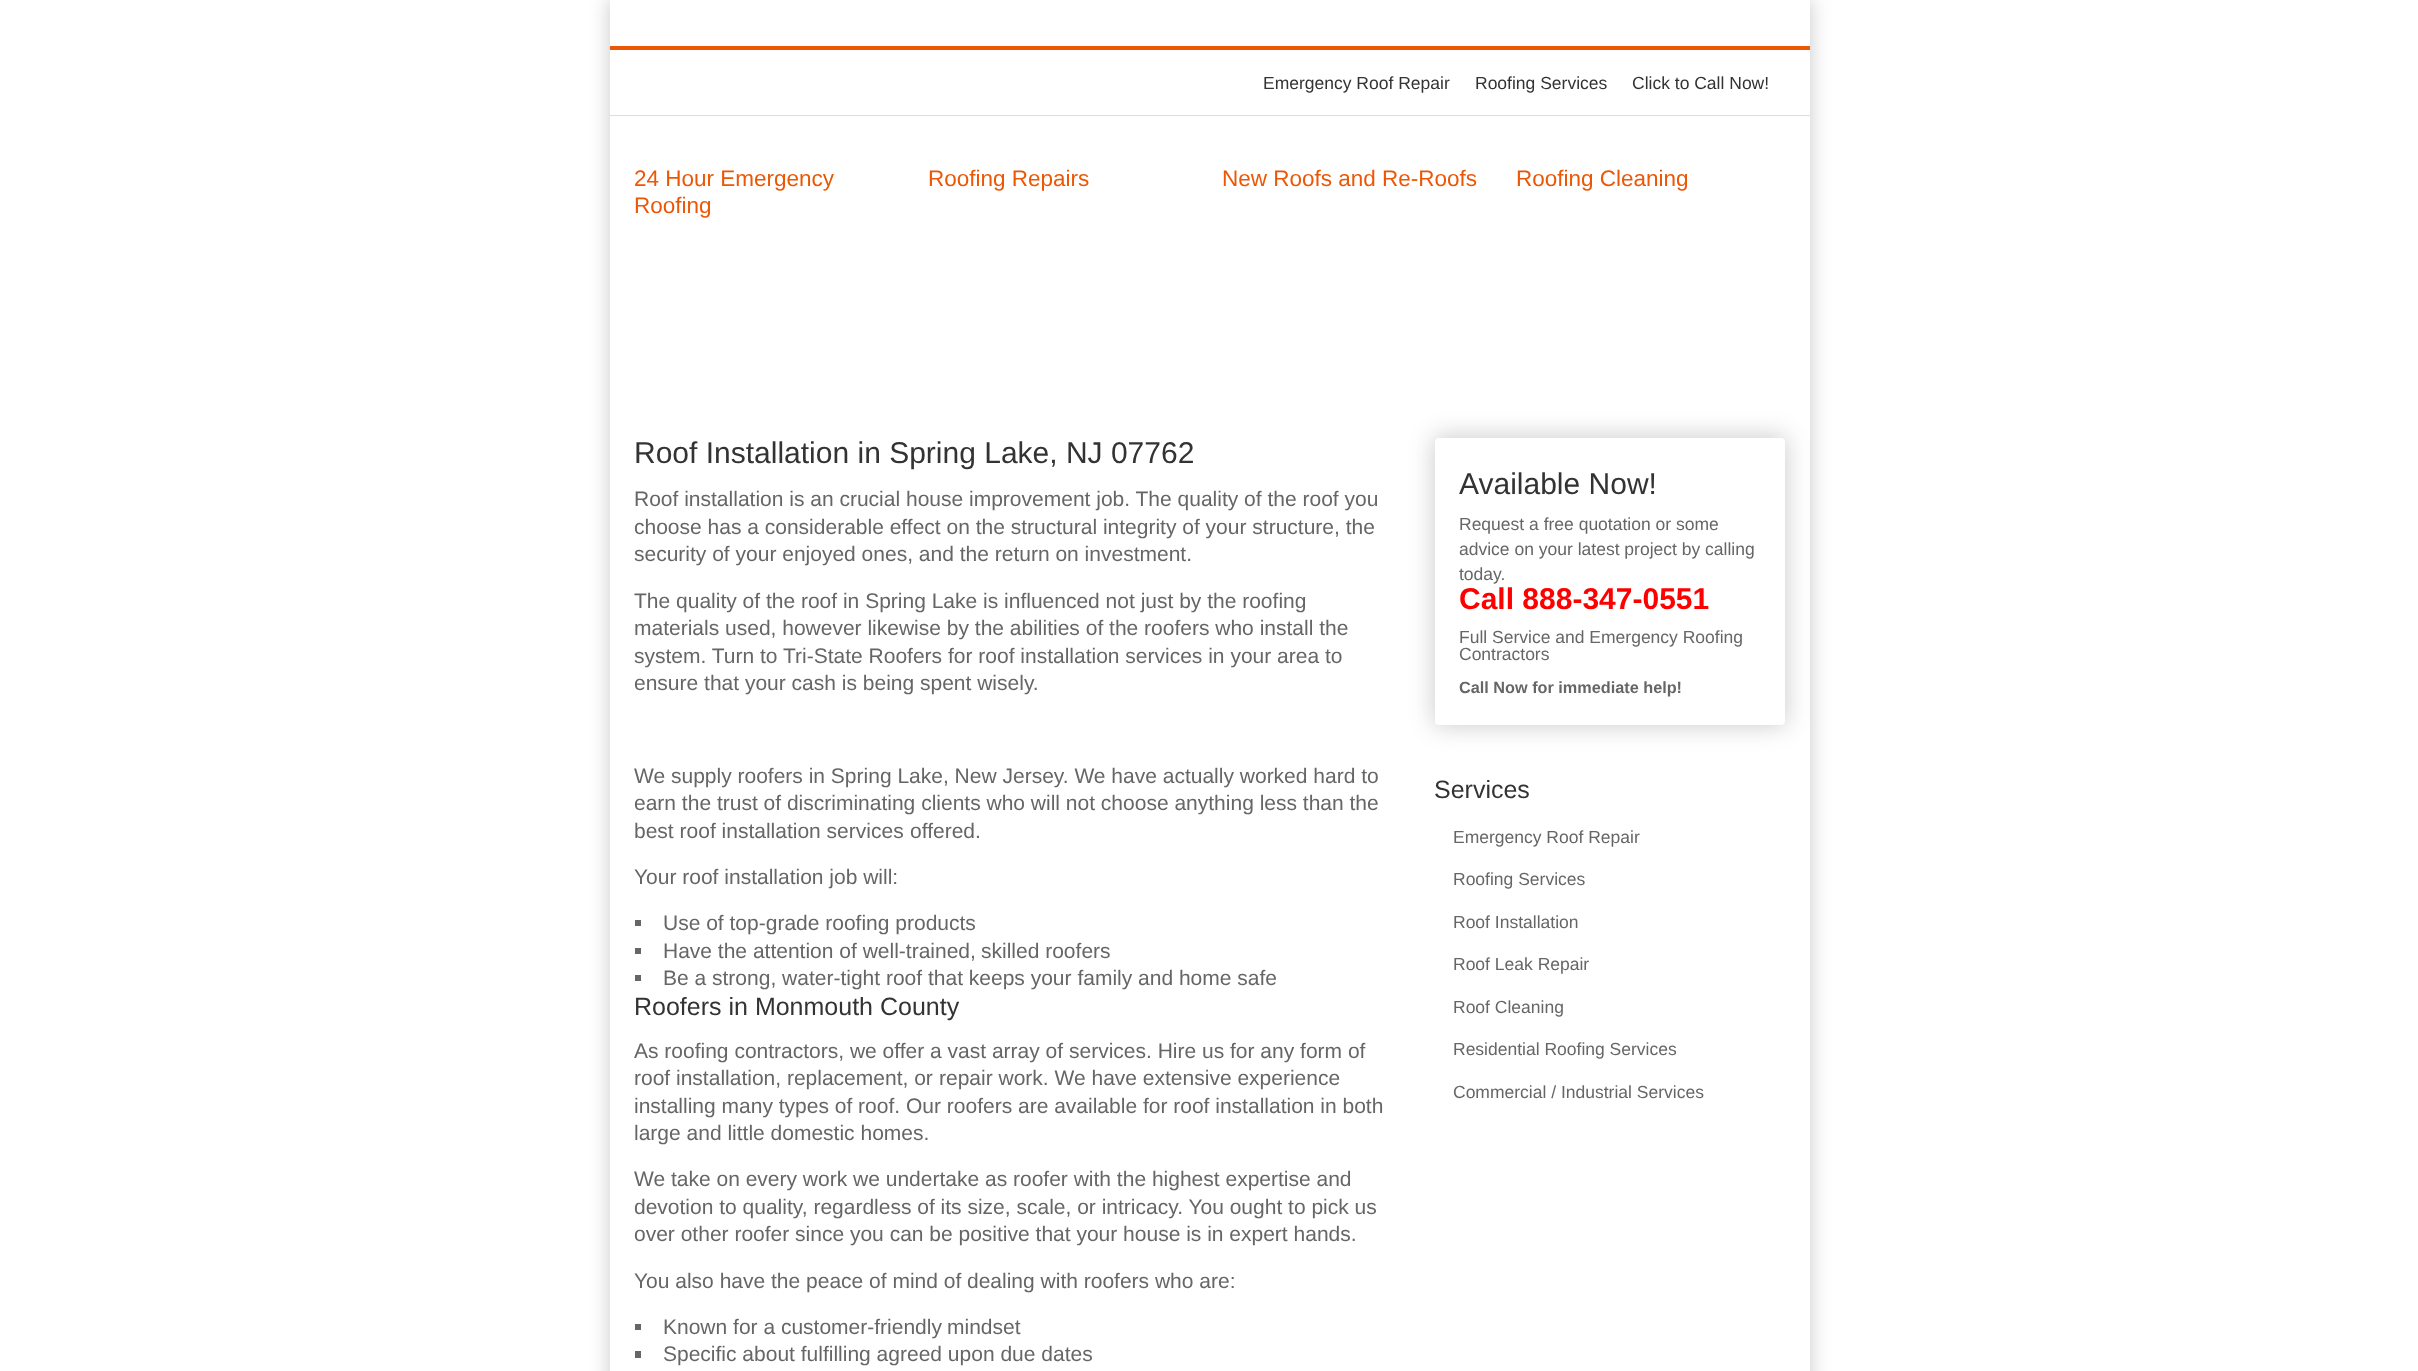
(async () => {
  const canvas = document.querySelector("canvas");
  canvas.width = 2418;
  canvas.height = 1371;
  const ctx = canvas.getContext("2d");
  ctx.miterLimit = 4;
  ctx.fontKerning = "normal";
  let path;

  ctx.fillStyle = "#ffffff";
  ctx.fillRect(0, 0, 2418, 1371);
  ctx.save();
  path = new Path2D("M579 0H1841V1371H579ZM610 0H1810V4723H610Z");
  ctx.clip(path, "evenodd");
  ctx.fillStyle = "rgba(0, 0, 0, 0.2)";
  ctx.filter = "blur(9.5px)";
  ctx.beginPath();
  ctx.rect(609, -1, 1202, 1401);
  ctx.fill();
  ctx.filter = "none";
  ctx.restore();
  for (const [x, y, w, h, color] of [
    [610, 46, 1200, 4, "#ec5706"],
    [610, 115, 1200, 1, "#dddddd"],
    [635, 920, 6, 6, "#666666"],
    [635, 948, 6, 6, "#666666"],
    [635, 975, 6, 6, "#666666"],
    [635, 1324, 6, 6, "#666666"],
    [635, 1351, 6, 7, "#666666"],
  ]) {
    ctx.fillStyle = color;
    ctx.fillRect(x, y, w, h);
  }
  ctx.fillStyle = "rgba(0, 0, 0, 0.2)";
  ctx.filter = "blur(12.5px)";
  ctx.beginPath();
  ctx.roundRect(1434, 436, 352, 290, 5);
  ctx.fill();
  ctx.filter = "none";
  ctx.fillStyle = "#ffffff";
  ctx.beginPath();
  ctx.roundRect(1435, 438, 350, 287, 4);
  ctx.fill();
  ctx.font = "17.5px Liberation Sans";
  ctx.fillStyle = "#333333";
  for (const [text, x, y] of [
    ["Emergency Roof Repair", 1263, 89],
    ["Roofing Services", 1475, 89],
    ["Click to Call Now!", 1632, 89],
  ]) {
    ctx.fillText(text, x, y);
  }
  ctx.font = "22.5px Liberation Sans";
  ctx.fillStyle = "#ec5706";
  for (const [text, x, y] of [
    ["24 Hour Emergency", 634, 186],
    ["Roofing", 634, 213],
    ["Roofing Repairs", 928, 186],
    ["New Roofs and Re-Roofs", 1222, 186],
    ["Roofing Cleaning", 1516, 186],
  ]) {
    ctx.fillText(text, x, y);
  }
  ctx.font = "30px Liberation Sans";
  ctx.fillStyle = "#333333";
  ctx.fillText("Roof Installation in Spring Lake, NJ 07762", 634, 463);
  ctx.font = "21px Liberation Sans";
  ctx.fillStyle = "#666666";
  for (const [text, x, y] of [
    ["Roof installation is an crucial house improvement job. The quality of the roof you", 634, 506],
    ["choose has a considerable effect on the structural integrity of your structure, the", 634, 534],
    ["security of your enjoyed ones, and the return on investment.", 634, 561],
    ["The quality of the roof in Spring Lake is influenced not just by the roofing", 634, 608],
    ["materials used, however likewise by the abilities of the roofers who install the", 634, 635],
    ["system. Turn to Tri-State Roofers for roof installation services in your area to", 634, 663],
    ["ensure that your cash is being spent wisely.", 634, 690],
    ["We supply roofers in Spring Lake, New Jersey. We have actually worked hard to", 634, 783],
    ["earn the trust of discriminating clients who will not choose anything less than the", 634, 810],
    ["best roof installation services", 634, 838],
    ["offered.", 910, 838],
    ["Your roof installation job will:", 634, 884],
    ["Use of top-grade roofing products", 663, 930],
    ["Have the attention of well-trained,", 663, 958],
    ["skilled roofers", 981, 958],
    ["Be a strong, water-tight roof that keeps your family and home safe", 663, 985],
  ]) {
    ctx.fillText(text, x, y);
  }
  ctx.font = "25px Liberation Sans";
  ctx.fillStyle = "#333333";
  ctx.fillText("Roofers in Monmouth County", 634, 1015);
  ctx.font = "21px Liberation Sans";
  ctx.fillStyle = "#666666";
  for (const [text, x, y] of [
    ["As roofing contractors, we offer a vast array of services. Hire us for any form of", 634, 1058],
    ["roof installation, replacement, or", 634, 1085],
    ["repair work. We have extensive experience", 939, 1085],
    ["installing many types of roof. Our roofers are available for roof installation in both", 634, 1113],
    ["large and little domestic homes.", 634, 1140],
    ["We take on every work we undertake as", 634, 1186],
    ["roofer with the highest expertise and", 1013, 1186],
    ["devotion to quality, regardless of its size, scale, or intricacy. You ought to pick us", 634, 1214],
    ["over other roofer since you can be positive that your house is in expert hands.", 634, 1241],
    ["You also have the peace of mind of", 634, 1288],
    ["dealing with roofers who are:", 967, 1288],
    ["Known for a customer-friendly", 663, 1334],
    ["mindset", 947, 1334],
    ["Specific about fulfilling agreed upon due dates", 663, 1361],
  ]) {
    ctx.fillText(text, x, y);
  }
  ctx.font = "30px Liberation Sans";
  ctx.fillStyle = "#333333";
  ctx.fillText("Available Now!", 1459, 494);
  ctx.font = "17.5px Liberation Sans";
  ctx.fillStyle = "#666666";
  for (const [text, x, y] of [
    ["Request a free quotation or some", 1459, 530],
    ["advice on your latest project by calling", 1459, 555],
    ["today.", 1459, 580],
  ]) {
    ctx.fillText(text, x, y);
  }
  ctx.font = "bold 30px Liberation Sans";
  ctx.fillStyle = "#ff0000";
  ctx.fillText("Call 888-347-0551", 1459, 609);
  ctx.font = "17.5px Liberation Sans";
  ctx.fillStyle = "#666666";
  ctx.fillText("Full Service and Emergency Roofing", 1459, 643);
  ctx.fillText("Contractors", 1459, 660);
  ctx.font = "bold 16.25px Liberation Sans";
  ctx.fillText("Call Now for immediate help!", 1459, 693);
  ctx.font = "25px Liberation Sans";
  ctx.fillStyle = "#333333";
  ctx.fillText("Services", 1434, 798);
  ctx.font = "17.5px Liberation Sans";
  ctx.fillStyle = "#666666";
  for (const [text, x, y] of [
    ["Emergency Roof Repair", 1453, 843],
    ["Roofing Services", 1453, 885],
    ["Roof Installation", 1453, 928],
    ["Roof Leak Repair", 1453, 970],
    ["Roof Cleaning", 1453, 1013],
    ["Residential Roofing Services", 1453, 1055],
    ["Commercial / Industrial Services", 1453, 1098],
  ]) {
    ctx.fillText(text, x, y);
  }
})();
